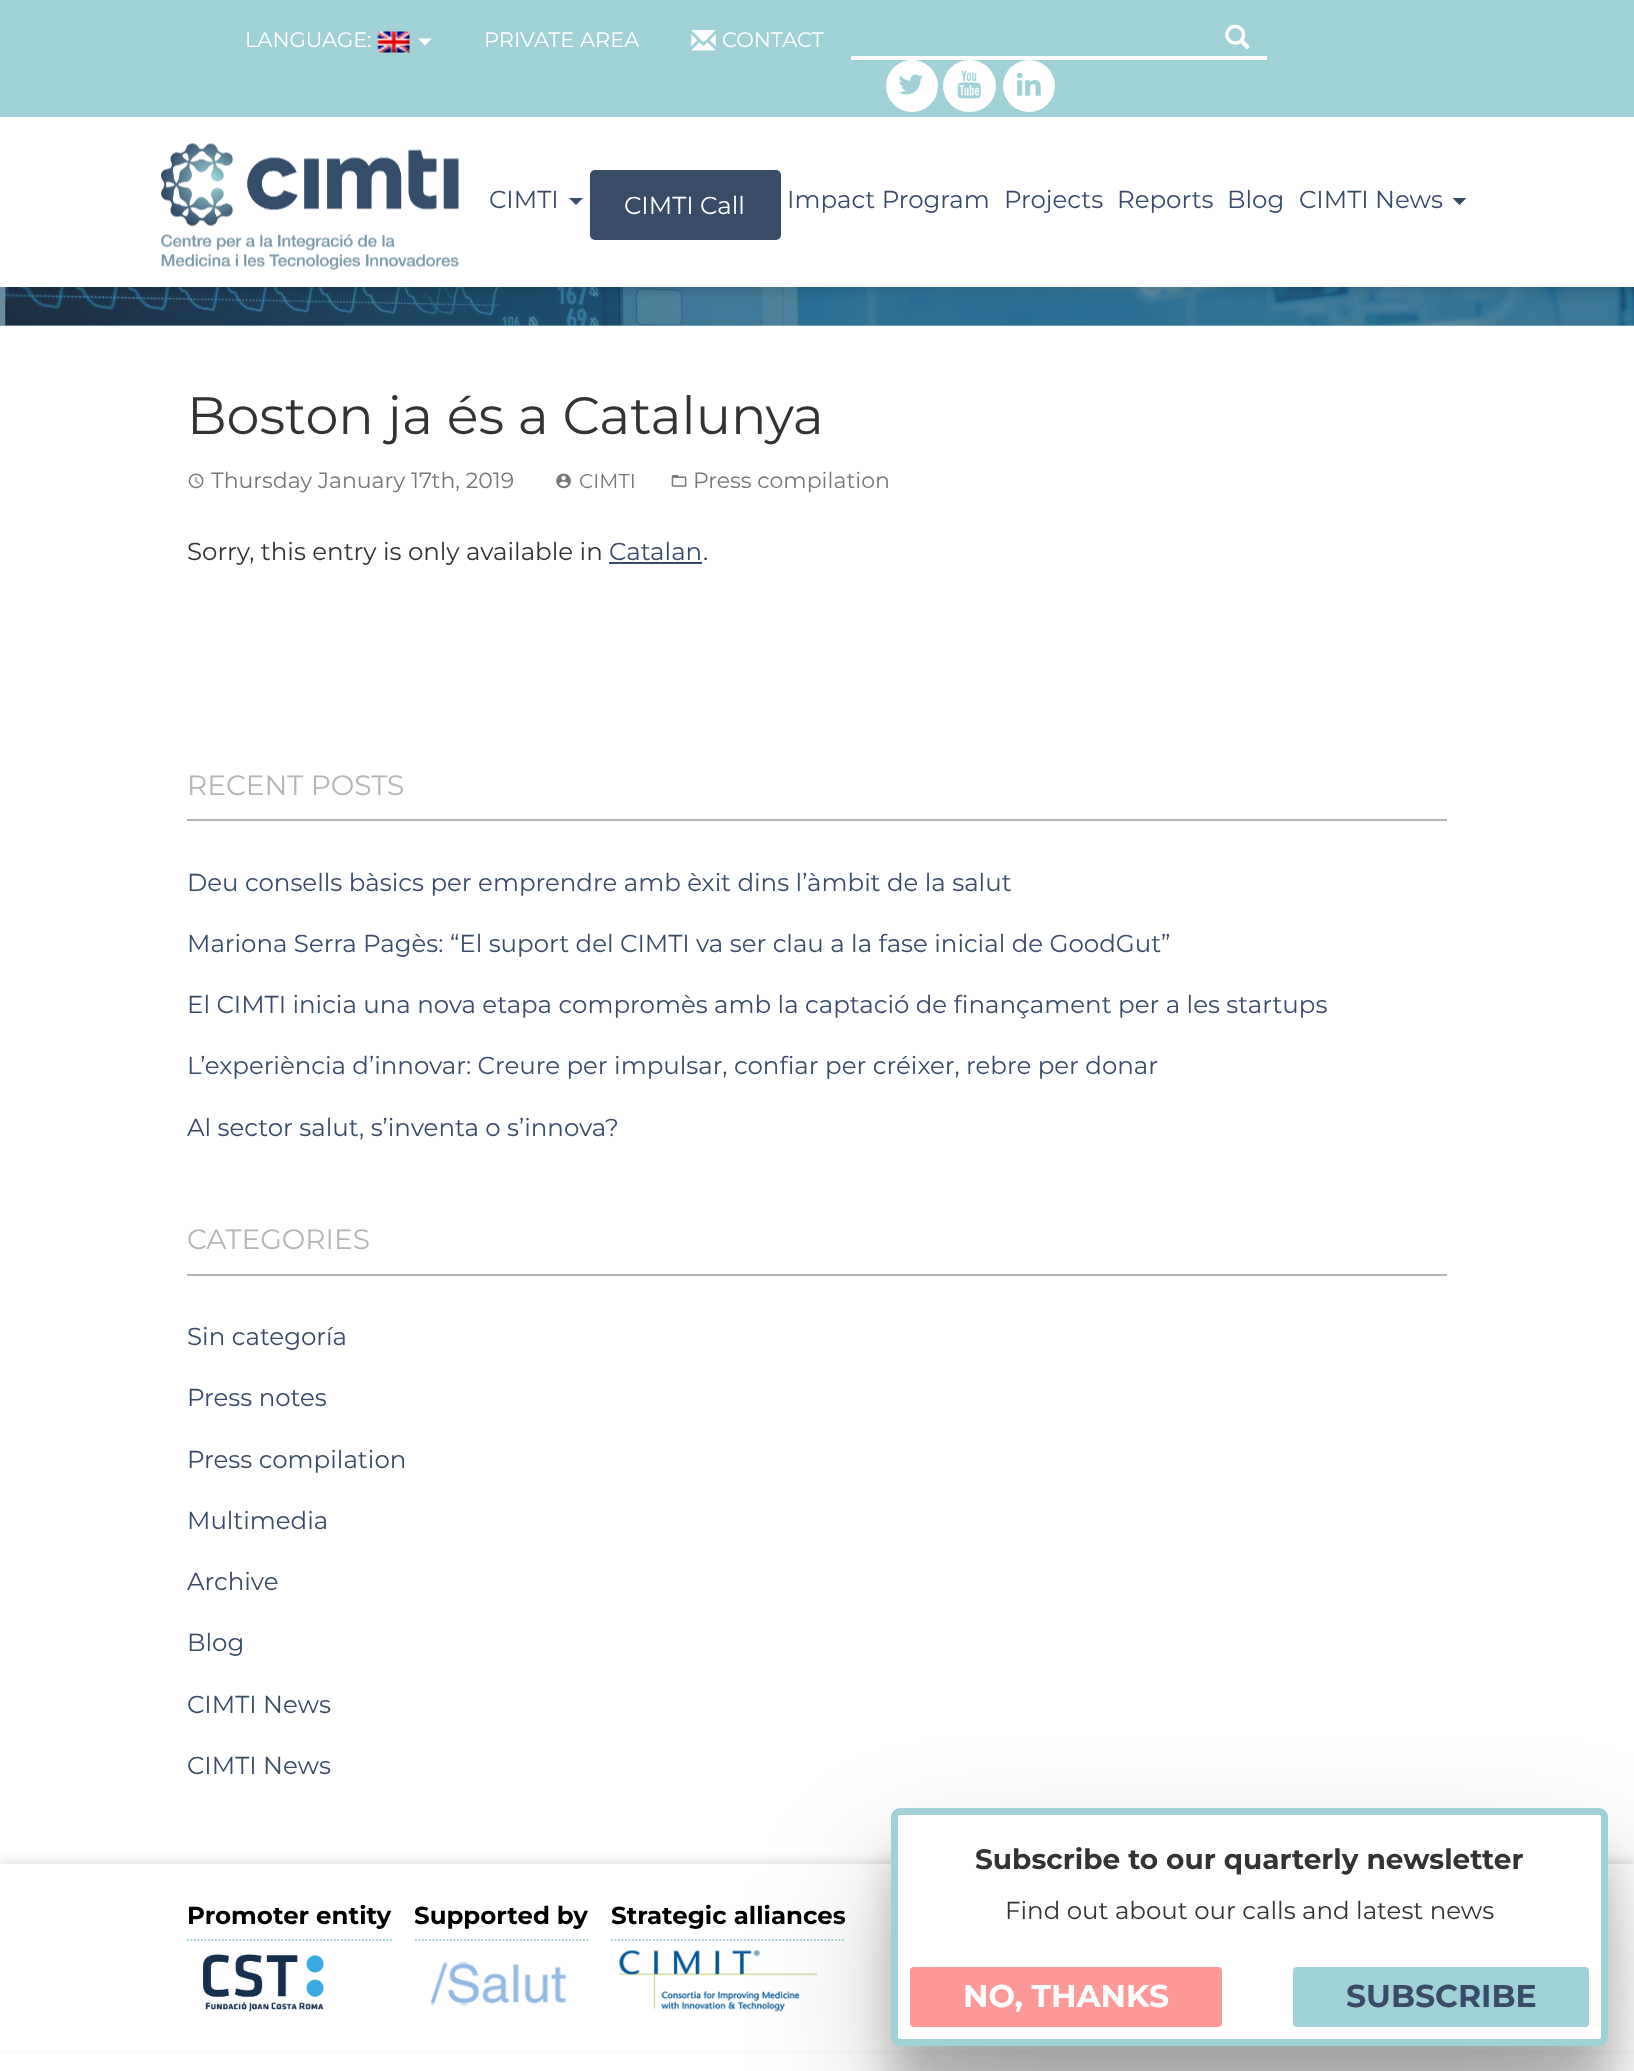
(async () => {
  const canvas = document.querySelector("canvas");
  canvas.width = 1634;
  canvas.height = 2071;
  const ctx = canvas.getContext("2d");
  ctx.miterLimit = 4;
  ctx.fontKerning = "normal";
  async function loadImage(src) {
    const img = new Image();
    img.src = src;
    await img.decode();
    return img;
  }
  let path;

  ctx.fillStyle = "#ffffff";
  ctx.fillRect(0, 0, 1634, 2071);
  ctx.fillStyle = "#a0d1d6";
  ctx.fillRect(0, 325, 1634, 1);
  ctx.drawImage(await loadImage("img/9.png"), 0, 287, 1634, 39);
  ctx.fillStyle = "rgba(0, 0, 0, 0.1)";
  ctx.filter = "blur(5px)";
  ctx.beginPath();
  ctx.rect(5, 5, 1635, 287);
  ctx.fill();
  ctx.filter = "none";
  ctx.fillStyle = "#ffffff";
  ctx.fillRect(0, 117, 1634, 170);
  ctx.fillStyle = "#a0d1d6";
  ctx.fillRect(0, 0, 1634, 117);
  ctx.drawImage(await loadImage("img/1.png"), 377, 31, 33, 22);
  ctx.fillStyle = "#ffffff";
  path = new Path2D("M418 38.5H432L425 45.5Z");
  ctx.fill(path);
  ctx.drawImage(await loadImage("img/2.png"), 691, 30, 25, 21);
  ctx.drawImage(await loadImage("img/3.png"), 1225, 24, 25, 26);
  ctx.fillRect(851, 56, 416, 4);
  ctx.beginPath();
  ctx.arc(912, 86, 26, 0, Math.PI * 2);
  ctx.fill();
  ctx.drawImage(await loadImage("img/4.png"), 898, 74, 25, 21);
  ctx.beginPath();
  ctx.roundRect(943, 60, 53, 52, 26);
  ctx.fill();
  ctx.drawImage(await loadImage("img/5.png"), 957, 70, 24, 29);
  ctx.beginPath();
  ctx.arc(1029, 86, 26, 0, Math.PI * 2);
  ctx.fill();
  ctx.drawImage(await loadImage("img/6.png"), 1016, 72, 25, 24);
  ctx.drawImage(await loadImage("img/7.png"), 161, 143, 298, 84);
  ctx.drawImage(await loadImage("img/8.png"), 161, 234, 298, 36);
  ctx.fillStyle = "#384b69";
  path = new Path2D("M569 198H583L576 205Z");
  ctx.fill(path);
  ctx.fillStyle = "#384c67";
  ctx.beginPath();
  ctx.roundRect(590, 170, 191, 70, 5);
  ctx.fill();
  ctx.fillStyle = "#384b69";
  path = new Path2D("M1452.5 198H1466.5L1459.5 205Z");
  ctx.fill(path);
  ctx.drawImage(await loadImage("img/10.png"), 188, 473, 16, 16);
  ctx.drawImage(await loadImage("img/11.png"), 556, 473, 15, 16);
  ctx.drawImage(await loadImage("img/12.png"), 671, 475, 16, 12);
  for (const [x, y, w, h, color] of [
    [609, 562, 93, 2, "#384b69"],
    [187, 819, 1260, 2, "#b5b5b5"],
    [187, 1274, 1260, 2, "#b5b5b5"],
  ]) {
    ctx.fillStyle = color;
    ctx.fillRect(x, y, w, h);
  }
  ctx.save();
  path = new Path2D("M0 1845H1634V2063H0ZM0 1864H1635V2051H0Z");
  ctx.clip(path, "evenodd");
  ctx.fillStyle = "rgba(0, 0, 0, 0.1)";
  ctx.filter = "blur(4.5px)";
  ctx.beginPath();
  ctx.rect(0, 1860, 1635, 188);
  ctx.fill();
  ctx.filter = "none";
  ctx.restore();
  path = new Path2D("M187 1940H392");
  ctx.strokeStyle = "#a0d1d6";
  ctx.lineWidth = 1.8;
  ctx.setLineDash([1.75, 1.75]);
  ctx.stroke(path);
  ctx.drawImage(await loadImage("img/13.png"), 203, 1954, 121, 58);
  path = new Path2D("M415 1940H588");
  ctx.stroke(path);
  ctx.drawImage(await loadImage("img/14.png"), 431, 1961, 136, 45);
  path = new Path2D("M611 1940H845");
  ctx.stroke(path);
  ctx.drawImage(await loadImage("img/15.png"), 619, 1950, 199, 62);
  ctx.fillStyle = "rgba(0, 0, 0, 0.22)";
  ctx.filter = "blur(67.5px)";
  ctx.beginPath();
  ctx.roundRect(891, 1878, 717, 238, 9);
  ctx.fill();
  ctx.filter = "none";
  ctx.fillStyle = "rgba(0, 0, 0, 0.2)";
  ctx.filter = "blur(21px)";
  ctx.beginPath();
  ctx.roundRect(891, 1855, 717, 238, 9);
  ctx.fill();
  ctx.filter = "none";
  ctx.fillStyle = "#ffffff";
  ctx.beginPath();
  ctx.roundRect(894.5, 1811.5, 710, 231, 5.5);
  ctx.fill();
  ctx.lineWidth = 7;
  ctx.setLineDash([]);
  ctx.stroke();
  ctx.fillStyle = "#ff9999";
  ctx.beginPath();
  ctx.roundRect(910, 1967, 312, 60, 4);
  ctx.fill();
  ctx.fillStyle = "#a0d1d6";
  ctx.beginPath();
  ctx.roundRect(1293, 1967, 296, 60, 4);
  ctx.fill();
  ctx.font = "21px Montserrat";
  ctx.fillStyle = "#ffffff";
  for (const [text, x, y] of [
    ["LANGUAGE:", 245, 47],
    ["PRIVATE AREA", 484, 47],
    ["CONTACT", 722, 47],
  ]) {
    ctx.fillText(text, x, y);
  }
  ctx.font = "24.5px Montserrat";
  ctx.fillStyle = "#384b69";
  ctx.fillText("CIMTI", 489, 208);
  ctx.fillStyle = "#ffffff";
  ctx.fillText("CIMTI Call", 624, 214);
  ctx.fillStyle = "#384b69";
  for (const [text, x, y] of [
    ["Impact Program", 787, 208],
    ["Projects", 1004, 208],
    ["Reports", 1117, 208],
    ["Blog", 1227, 208],
    ["CIMTI News", 1299, 208],
  ]) {
    ctx.fillText(text, x, y);
  }
  ctx.font = "52.5px Montserrat";
  ctx.fillStyle = "#333333";
  ctx.fillText("Boston ja és a Catalunya", 187, 434);
  ctx.font = "22px Montserrat";
  ctx.fillStyle = "#777777";
  ctx.fillText("Thursday January 17th, 2019", 211, 488);
  ctx.font = "20px Montserrat";
  ctx.fillText("CIMTI", 579, 488);
  ctx.font = "22px Montserrat";
  ctx.fillText("Press compilation", 693, 488);
  ctx.font = "24.5px Montserrat";
  ctx.fillStyle = "#333333";
  ctx.fillText("Sorry, this entry is only available in", 187, 560);
  ctx.fillStyle = "#384b69";
  ctx.fillText("Catalan", 609, 560);
  ctx.fillStyle = "#333333";
  ctx.fillText(".", 703, 560);
  ctx.font = "28px Montserrat";
  ctx.fillStyle = "#b5b5b5";
  ctx.fillText("RECENT POSTS", 187, 795);
  ctx.font = "24.5px Montserrat";
  ctx.fillStyle = "#384b69";
  for (const [text, x, y] of [
    ["Deu consells bàsics per emprendre amb èxit dins l’àmbit de la salut", 187, 891],
    ["Mariona Serra Pagès: “El suport del CIMTI va ser clau a la fase inicial de GoodGut”", 187, 952],
    ["El CIMTI inicia una nova etapa compromès amb la captació de finançament per a les startups", 187, 1013],
    ["L’experiència d’innovar: Creure per impulsar, confiar per créixer, rebre per donar", 187, 1074],
    ["Al sector salut, s’inventa o s’innova?", 187, 1136],
  ]) {
    ctx.fillText(text, x, y);
  }
  ctx.font = "28px Montserrat";
  ctx.fillStyle = "#b5b5b5";
  ctx.fillText("CATEGORIES", 187, 1249);
  ctx.font = "24.5px Montserrat";
  ctx.fillStyle = "#384b69";
  for (const [text, x, y] of [
    ["Sin categoría", 187, 1345],
    ["Press notes", 187, 1406],
    ["Press compilation", 187, 1468],
    ["Multimedia", 187, 1529],
    ["Archive", 187, 1590],
    ["Blog", 187, 1651],
    ["CIMTI News", 187, 1713],
    ["CIMTI News", 187, 1774],
  ]) {
    ctx.fillText(text, x, y);
  }
  ctx.font = "bold 24.5px Montserrat";
  ctx.fillStyle = "#000000";
  for (const [text, x, y] of [
    ["Promoter entity", 187, 1924],
    ["Supported by", 414, 1924],
    ["Strategic alliances", 611, 1924],
  ]) {
    ctx.fillText(text, x, y);
  }
  ctx.font = "bold 28px Montserrat";
  ctx.fillStyle = "#333333";
  ctx.fillText("Subscribe to our quarterly newsletter", 975, 1869);
  ctx.font = "24.5px Montserrat";
  ctx.fillText("Find out about our calls and latest news", 1005, 1919);
  ctx.font = "bold 31.5px Montserrat";
  ctx.fillStyle = "#ffffff";
  ctx.fillText("NO, THANKS", 963, 2007);
  ctx.fillStyle = "#384b69";
  ctx.fillText("SUBSCRIBE", 1346, 2007);
})();
